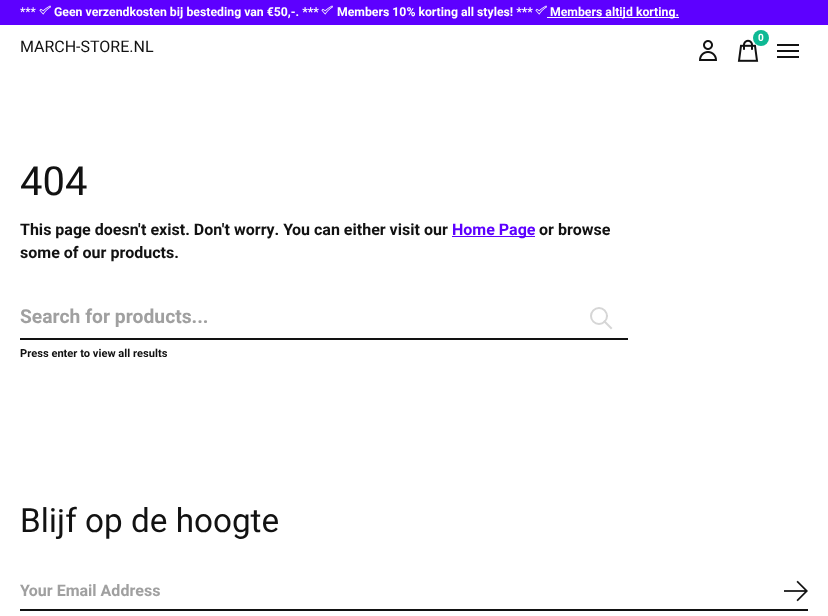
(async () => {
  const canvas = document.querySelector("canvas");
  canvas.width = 828;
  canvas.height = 616;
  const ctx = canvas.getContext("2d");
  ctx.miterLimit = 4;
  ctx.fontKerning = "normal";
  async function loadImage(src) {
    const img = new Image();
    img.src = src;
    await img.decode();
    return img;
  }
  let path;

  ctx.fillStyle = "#ffffff";
  ctx.fillRect(0, 0, 828, 616);
  ctx.fillStyle = "#5d00ff";
  ctx.fillRect(0, 0, 828, 25);
  ctx.drawImage(await loadImage("img/1.png"), 39, 5, 12, 10);
  ctx.drawImage(await loadImage("img/1.png"), 321, 5, 12, 10);
  ctx.drawImage(await loadImage("img/1.png"), 535, 5, 12, 10);
  ctx.fillStyle = "#ffffff";
  ctx.fillRect(547, 17, 132, 1);
  ctx.drawImage(await loadImage("img/2.png"), 737, 39, 22, 23);
  ctx.fillStyle = "#0eb994";
  ctx.beginPath();
  ctx.arc(761, 38, 8, 0, Math.PI * 2);
  ctx.fill();
  ctx.drawImage(await loadImage("img/3.png"), 699, 40, 18, 21);
  for (const [x, y, w, h, color] of [
    [777, 44, 22, 2, "#121212"],
    [777, 50, 22, 2, "#121212"],
    [777, 56, 22, 2, "#121212"],
    [452, 236, 83, 1, "#5d00ff"],
    [20, 338, 608, 2, "#121212"],
  ]) {
    ctx.fillStyle = color;
    ctx.fillRect(x, y, w, h);
  }
  path = new Path2D("M611 328L604.5 321.5");
  ctx.strokeStyle = "#d6d6d6";
  ctx.lineWidth = 2;
  ctx.lineCap = "square";
  ctx.stroke(path);
  ctx.beginPath();
  ctx.arc(599, 316, 8, 0, Math.PI * 2);
  ctx.stroke();
  ctx.fillRect(20, 609, 788, 2);
  ctx.drawImage(await loadImage("img/4.png"), 784, 580, 24, 22);
  ctx.font = "12.25px Heebo";
  ctx.fillStyle = "#ffffff";
  ctx.fillText("***", 20, 16);
  ctx.font = "bold 12.25px Heebo";
  for (const [text, x, y] of [
    ["Geen verzendkosten bij besteding van €50,-. ***", 54, 16],
    ["Members 10% korting all styles! ***", 337, 16],
    ["Members altijd korting.", 550, 16],
  ]) {
    ctx.fillText(text, x, y);
  }
  ctx.font = "bold 10px Heebo";
  ctx.fillText("0", 758, 41);
  ctx.font = "16px Heebo";
  ctx.fillStyle = "#121212";
  ctx.fillText("MARCH-STORE.NL", 20, 52);
  ctx.font = "40px Heebo";
  ctx.fillText("404", 20, 195);
  ctx.font = "bold 16px Heebo";
  ctx.fillText("This page doesn't exist. Don't worry. You can either visit our", 20, 235);
  ctx.fillStyle = "#5d00ff";
  ctx.fillText("Home Page", 452, 235);
  ctx.fillStyle = "#121212";
  ctx.fillText("or browse", 539, 235);
  ctx.fillText("some of our products.", 20, 258);
  ctx.font = "bold 19.25px Heebo";
  ctx.fillStyle = "#a0a0a0";
  ctx.fillText("Search for products...", 20, 323);
  ctx.font = "bold 11.1px Heebo";
  ctx.fillStyle = "#121212";
  ctx.fillText("Press enter to view all results", 20, 357);
  ctx.font = "33.25px Heebo";
  ctx.fillText("Blijf op de hoogte", 20, 532);
  ctx.font = "bold 16px Heebo";
  ctx.fillStyle = "#a0a0a0";
  ctx.fillText("Your Email Address", 20, 596);
})();
